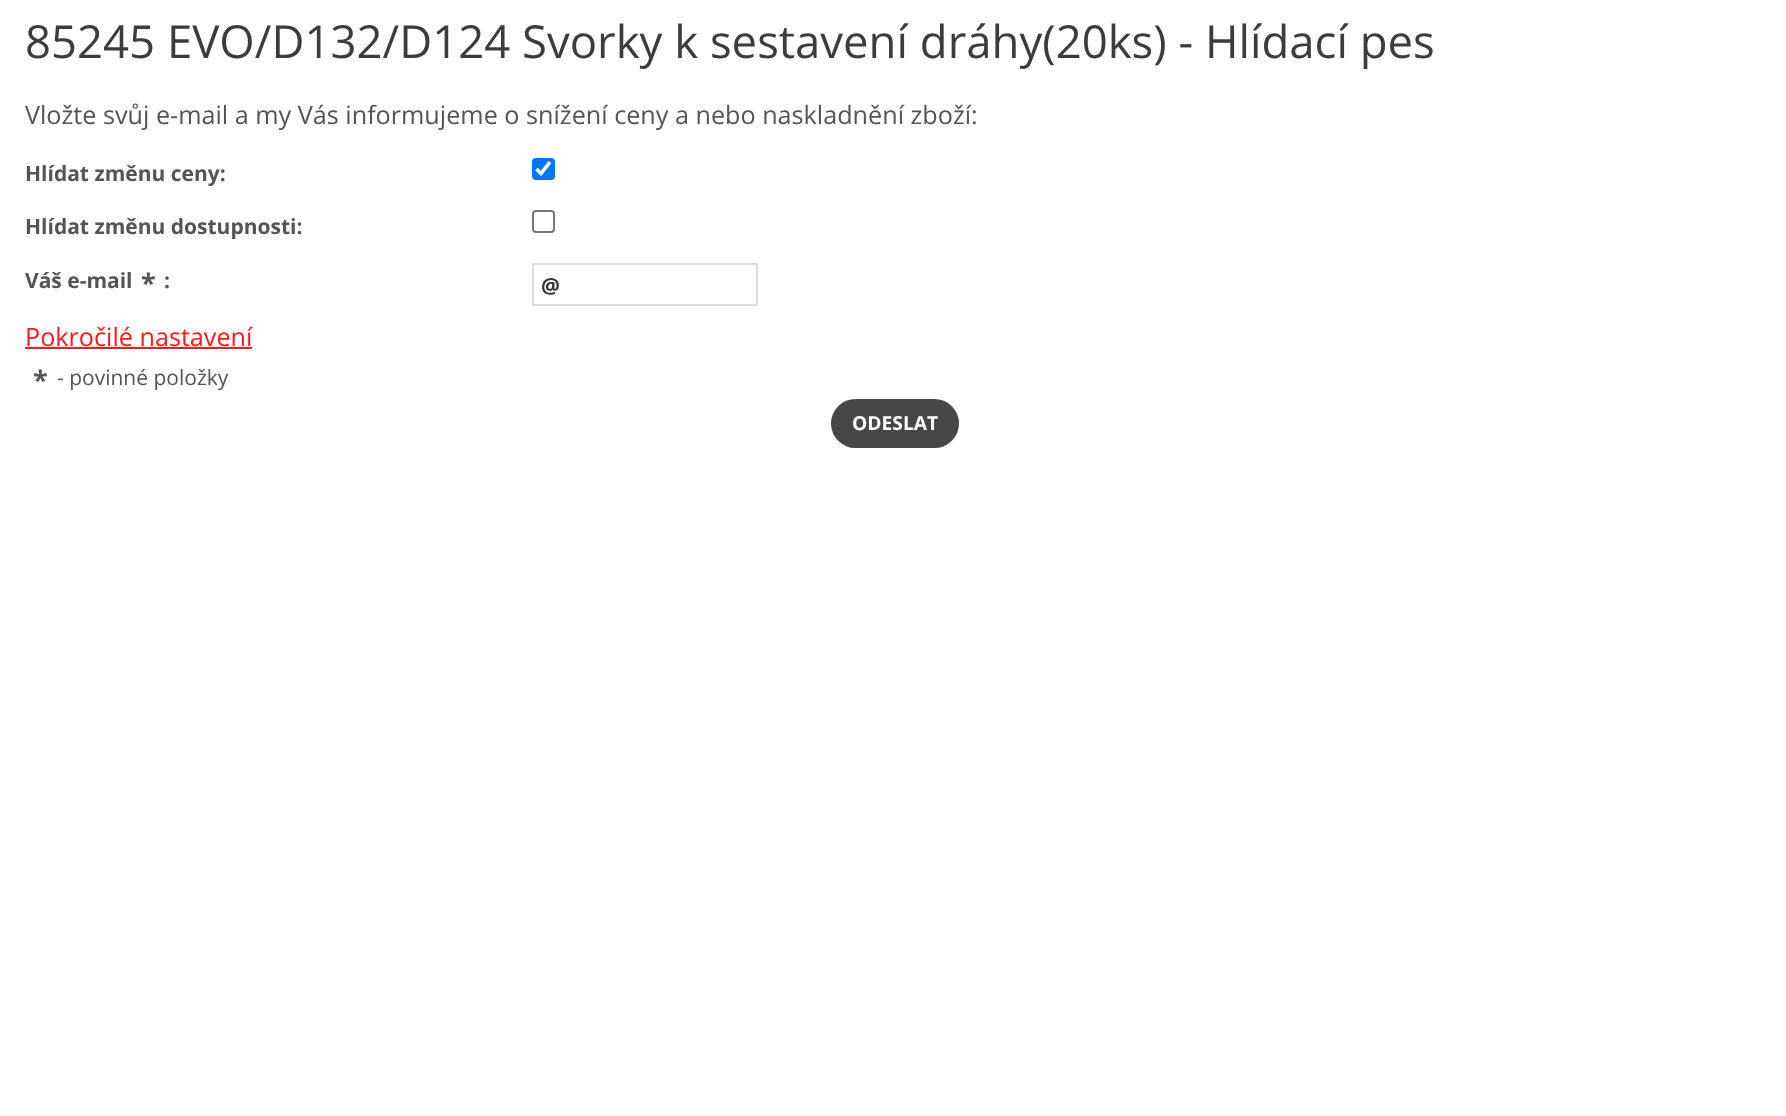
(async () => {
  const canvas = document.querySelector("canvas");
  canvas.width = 1786;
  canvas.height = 1116;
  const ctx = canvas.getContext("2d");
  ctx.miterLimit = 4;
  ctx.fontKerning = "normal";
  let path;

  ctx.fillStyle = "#ffffff";
  ctx.fillRect(0, 0, 1786, 1116);
  ctx.fillStyle = "#0075ff";
  ctx.beginPath();
  ctx.roundRect(532, 158, 23, 22, 4);
  ctx.fill();
  path = new Path2D("M536.5 169L541 173.5L550 162");
  ctx.strokeStyle = "#ffffff";
  ctx.lineWidth = 3.6;
  ctx.stroke(path);
  ctx.beginPath();
  ctx.roundRect(533, 211, 21, 21, 3);
  ctx.strokeStyle = "#767676";
  ctx.lineWidth = 2;
  ctx.stroke();
  ctx.strokeStyle = "#dddddd";
  ctx.strokeRect(533, 264, 224, 41);
  ctx.fillStyle = "#ff1919";
  ctx.fillRect(25, 347, 227, 2);
  ctx.fillStyle = "#474747";
  ctx.beginPath();
  ctx.roundRect(831, 399, 128, 49, 24.5);
  ctx.fill();
  ctx.font = "45.5px Open Sans";
  ctx.fillStyle = "#3c3c3c";
  ctx.fillText("85245 EVO/D132/D124 Svorky k sestavení dráhy(20ks) - Hlídací pes", 25, 58);
  ctx.font = "25.2px Open Sans";
  ctx.fillStyle = "#545454";
  ctx.fillText("Vložte svůj e-mail a my Vás informujeme o snížení ceny a nebo naskladnění zboží:", 25, 124);
  ctx.font = "bold 21px Open Sans";
  for (const [text, x, y] of [
    ["Hlídat změnu ceny:", 25, 181],
    ["Hlídat změnu dostupnosti:", 25, 234],
    ["Váš e-mail", 25, 288],
  ]) {
    ctx.fillText(text, x, y);
  }
  ctx.font = "bold 27px Open Sans";
  ctx.fillText("*", 141, 293);
  ctx.font = "bold 21px Open Sans";
  ctx.fillText(":", 164, 288);
  ctx.fillStyle = "#333333";
  ctx.fillText("@", 541, 293);
  ctx.font = "25.2px Open Sans";
  ctx.fillStyle = "#ff1919";
  ctx.fillText("Pokročilé nastavení", 25, 346);
  ctx.font = "bold 27px Open Sans";
  ctx.fillStyle = "#545454";
  ctx.fillText("*", 33, 390);
  ctx.font = "21px Open Sans";
  ctx.fillText("- povinné položky", 57, 385);
  ctx.font = "bold 19.25px Open Sans";
  ctx.fillStyle = "#ffffff";
  ctx.fillText("ODESLAT", 852, 430);
})();
